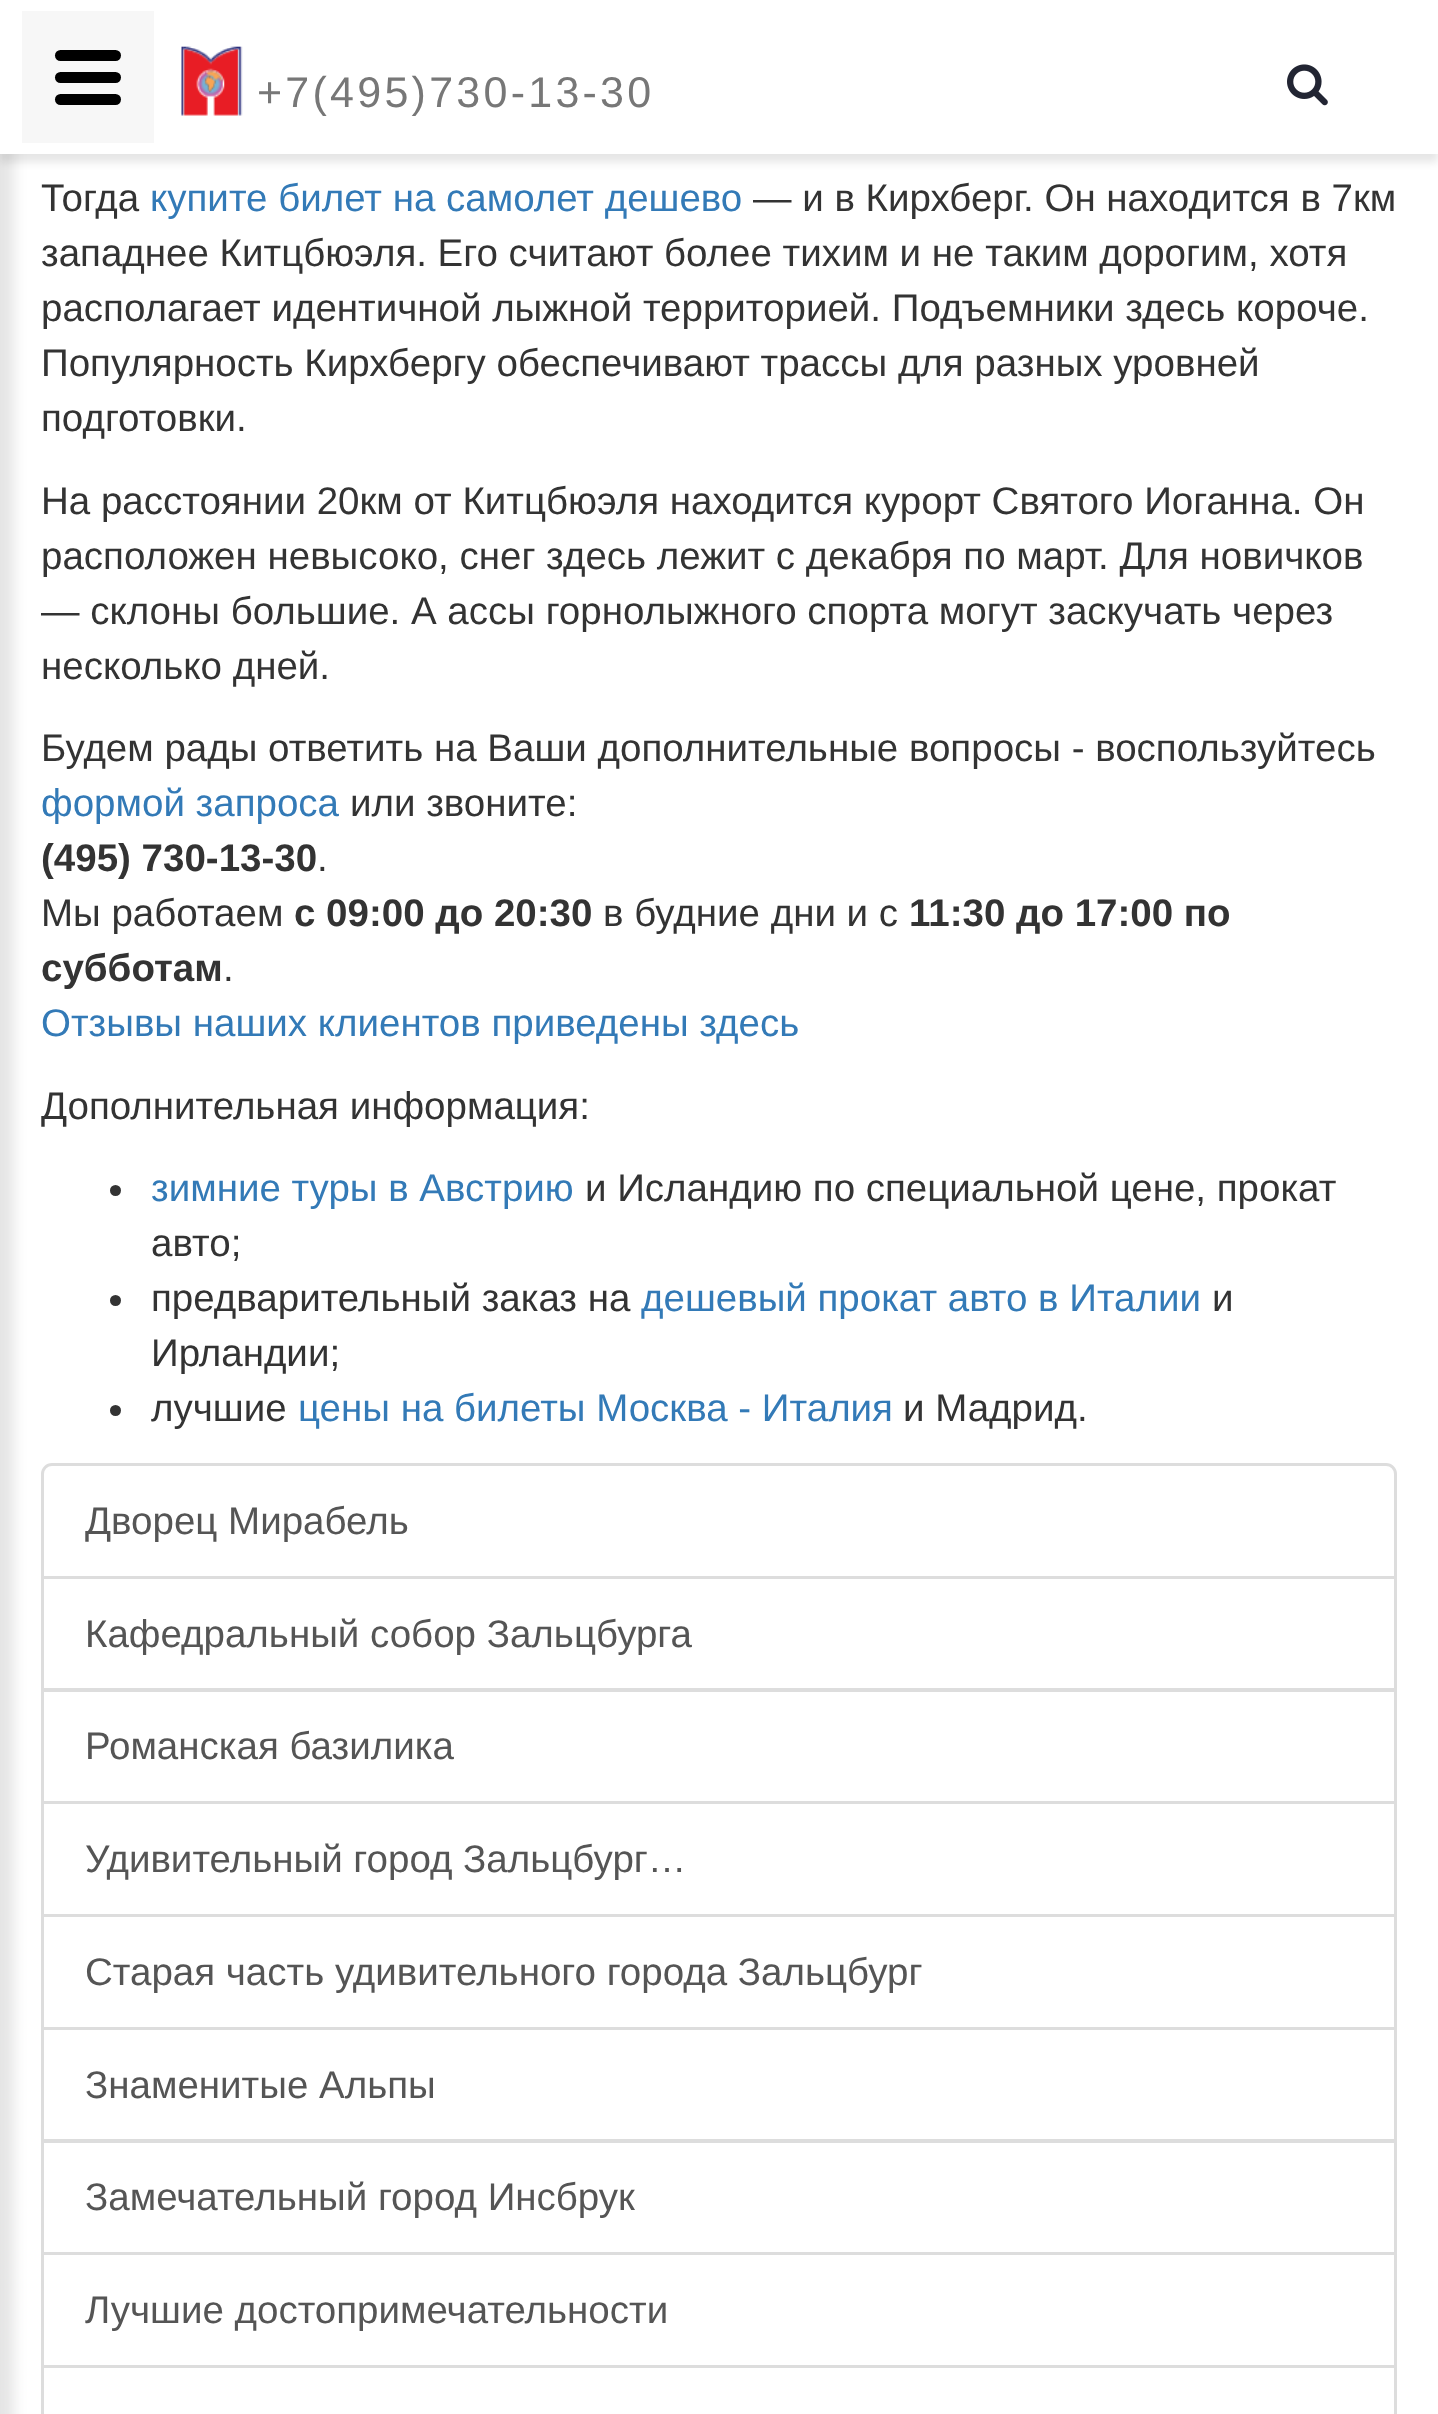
(async () => {
  const canvas = document.querySelector("canvas");
  canvas.width = 1438;
  canvas.height = 2414;
  const ctx = canvas.getContext("2d");
  ctx.miterLimit = 4;
  ctx.fontKerning = "normal";
  async function loadImage(src) {
    const img = new Image();
    img.src = src;
    await img.decode();
    return img;
  }

  ctx.fillStyle = "#ffffff";
  ctx.fillRect(0, 0, 1438, 2414);
  ctx.fillStyle = "rgba(0, 0, 0, 0.1)";
  ctx.filter = "blur(7px)";
  ctx.beginPath();
  ctx.rect(-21, -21, 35, 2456);
  ctx.fill();
  ctx.filter = "none";
  ctx.filter = "blur(4px)";
  ctx.beginPath();
  ctx.rect(0, 8, 1438, 154);
  ctx.fill();
  ctx.filter = "none";
  ctx.fillStyle = "#ffffff";
  ctx.fillRect(0, 0, 1438, 154);
  ctx.fillStyle = "#f7f7f7";
  ctx.fillRect(22, 11, 132, 132);
  ctx.fillStyle = "#000000";
  ctx.beginPath();
  ctx.roundRect(55, 72, 66, 11, 5.5);
  ctx.fill();
  ctx.beginPath();
  ctx.roundRect(55, 50, 66, 11, 5.5);
  ctx.fill();
  ctx.beginPath();
  ctx.roundRect(55, 94, 66, 11, 5.5);
  ctx.fill();
  ctx.drawImage(await loadImage("img/1.png"), 181, 46, 62, 70);
  ctx.drawImage(await loadImage("img/2.png"), 1287, 64, 41, 42);
  ctx.fillStyle = "#333333";
  ctx.beginPath();
  ctx.arc(115.5, 1190.5, 5.5, 0, Math.PI * 2);
  ctx.fill();
  ctx.beginPath();
  ctx.arc(115.5, 1300.5, 5.5, 0, Math.PI * 2);
  ctx.fill();
  ctx.beginPath();
  ctx.arc(115.5, 1410.5, 5.5, 0, Math.PI * 2);
  ctx.fill();
  ctx.beginPath();
  ctx.roundRect(42.5, 1464.5, 1353, 113, [9.5, 9.5, 0, 0]);
  ctx.strokeStyle = "#dddddd";
  ctx.lineWidth = 3;
  ctx.stroke();
  ctx.strokeRect(42.5, 1577.5, 1353, 112);
  ctx.strokeRect(42.5, 1690.5, 1353, 112);
  ctx.strokeRect(42.5, 1802.5, 1353, 113);
  ctx.strokeRect(42.5, 1915.5, 1353, 113);
  ctx.strokeRect(42.5, 2028.5, 1353, 112);
  ctx.strokeRect(42.5, 2141.5, 1353, 112);
  ctx.strokeRect(42.5, 2253.5, 1353, 113);
  ctx.strokeRect(42.5, 2366.5, 1353, 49);
  ctx.letterSpacing = "3.25px";
  ctx.font = "43px Liberation Sans";
  ctx.fillStyle = "#777777";
  ctx.fillText("+7(495)730-13-30", 257, 107);
  ctx.letterSpacing = "0px";
  ctx.font = "38.5px Liberation Sans";
  ctx.fillStyle = "#333333";
  ctx.fillText("Тогда", 41, 211);
  ctx.fillStyle = "#337ab7";
  ctx.fillText("купите билет на самолет дешево", 150, 211);
  ctx.fillStyle = "#333333";
  for (const [text, x, y] of [
    ["— и в Кирхберг. Он находится в 7км", 753, 211],
    ["западнее Китцбюэля. Его считают более тихим и не таким дорогим, хотя", 41, 266],
    ["располагает идентичной лыжной территорией. Подъемники здесь короче.", 41, 321],
    ["Популярность Кирхбергу обеспечивают трассы для разных уровней", 41, 376],
    ["подготовки.", 41, 431],
    ["На расстоянии 20км от Китцбюэля находится курорт Святого Иоганна. Он", 41, 514],
    ["расположен невысоко, снег здесь лежит с декабря по март. Для новичков", 41, 569],
    ["— склоны большие. А ассы горнолыжного спорта могут заскучать через", 41, 624],
    ["несколько дней.", 41, 679],
    ["Будем рады ответить на Ваши дополнительные вопросы - воспользуйтесь", 41, 761],
  ]) {
    ctx.fillText(text, x, y);
  }
  ctx.fillStyle = "#337ab7";
  ctx.fillText("формой запроса", 41, 816);
  ctx.fillStyle = "#333333";
  ctx.fillText("или звоните:", 350, 816);
  ctx.font = "bold 38.5px Liberation Sans";
  ctx.fillText("(495) 730-13-30", 41, 871);
  ctx.font = "38.5px Liberation Sans";
  ctx.fillText(".", 317, 871);
  ctx.fillText("Мы работаем", 41, 926);
  ctx.font = "bold 38.5px Liberation Sans";
  ctx.fillText("с 09:00 до 20:30", 294, 926);
  ctx.font = "38.5px Liberation Sans";
  ctx.fillText("в будние дни и с", 603, 926);
  ctx.font = "bold 38.5px Liberation Sans";
  ctx.fillText("11:30 до 17:00 по", 909, 926);
  ctx.fillText("субботам", 41, 981);
  ctx.font = "38.5px Liberation Sans";
  ctx.fillText(".", 223, 981);
  ctx.fillStyle = "#337ab7";
  ctx.fillText("Отзывы наших клиентов приведены здесь", 41, 1036);
  ctx.fillStyle = "#333333";
  ctx.fillText("Дополнительная информация:", 41, 1119);
  ctx.fillStyle = "#337ab7";
  ctx.fillText("зимние туры в Австрию", 151, 1201);
  ctx.fillStyle = "#333333";
  for (const [text, x, y] of [
    ["и Исландию по специальной цене, прокат", 585, 1201],
    ["авто;", 151, 1256],
    ["предварительный заказ на", 151, 1311],
  ]) {
    ctx.fillText(text, x, y);
  }
  ctx.fillStyle = "#337ab7";
  ctx.fillText("дешевый прокат авто в Италии", 641, 1311);
  ctx.fillStyle = "#333333";
  for (const [text, x, y] of [
    ["и", 1212, 1311],
    ["Ирландии;", 151, 1366],
    ["лучшие", 151, 1421],
  ]) {
    ctx.fillText(text, x, y);
  }
  ctx.fillStyle = "#337ab7";
  ctx.fillText("цены на билеты Москва - Италия", 298, 1421);
  ctx.fillStyle = "#333333";
  ctx.fillText("и Мадрид.", 903, 1421);
  ctx.fillStyle = "#555555";
  for (const [text, x, y] of [
    ["Дворец Мирабель", 85, 1534],
    ["Кафедральный собор Зальцбурга", 85, 1647],
    ["Романская базилика", 85, 1759],
    ["Удивительный город Зальцбург…", 85, 1872],
    ["Старая часть удивительного города Зальцбург", 85, 1985],
    ["Знаменитые Альпы", 85, 2098],
    ["Замечательный город Инсбрук", 85, 2210],
    ["Лучшие достопримечательности", 85, 2323],
  ]) {
    ctx.fillText(text, x, y);
  }
})();
